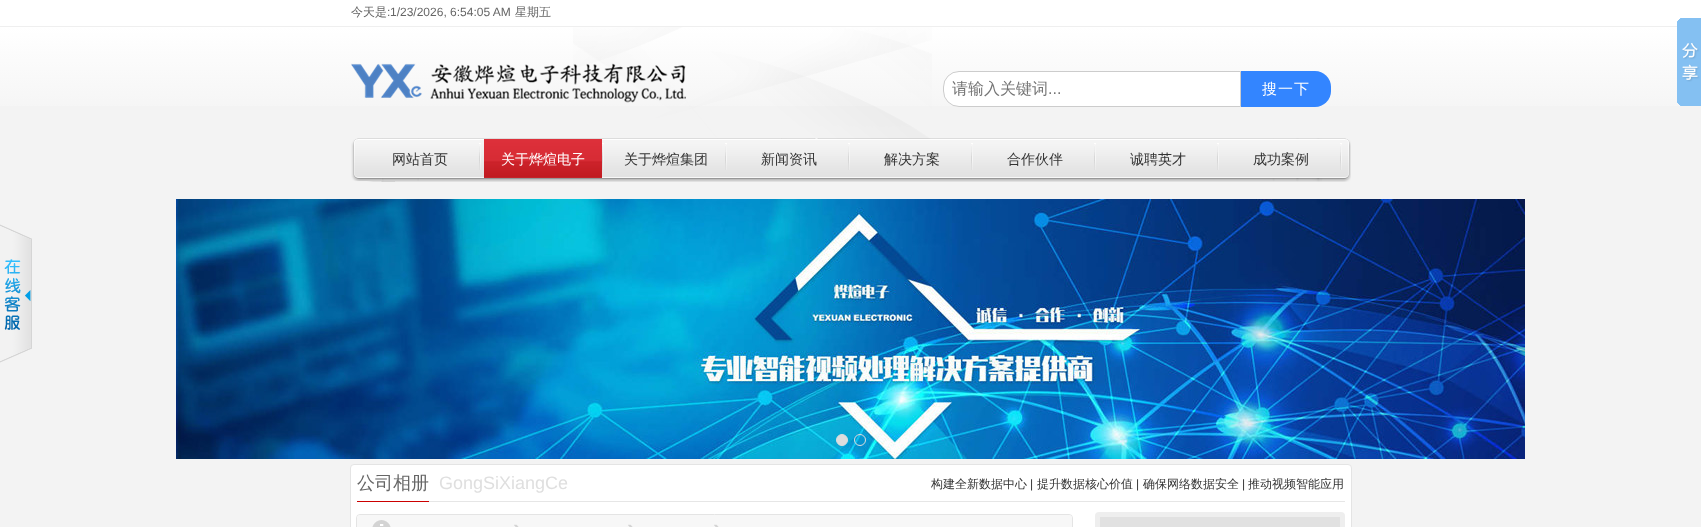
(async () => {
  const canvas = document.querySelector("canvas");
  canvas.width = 1701;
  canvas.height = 527;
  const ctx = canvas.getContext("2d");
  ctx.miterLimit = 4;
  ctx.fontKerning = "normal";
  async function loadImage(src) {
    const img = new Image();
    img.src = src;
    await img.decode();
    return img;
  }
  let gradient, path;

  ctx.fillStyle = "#f3f3f3";
  ctx.fillRect(0, 0, 1701, 527);
  ctx.fillStyle = "#ffffff";
  ctx.fillRect(0, 0, 1701, 26);
  ctx.fillStyle = "#efefef";
  ctx.fillRect(0, 26, 1677, 1);
  gradient = ctx.createLinearGradient(851, 27, 851, 127);
  gradient.addColorStop(0, "#ffffff");
  gradient.addColorStop(1, "#f3f3f3");
  ctx.fillStyle = gradient;
  ctx.fillRect(0, 27, 1701, 79);
  ctx.drawImage(await loadImage("img/1.png"), 573, 27, 359, 112);
  ctx.drawImage(await loadImage("img/2.png"), 351, 63, 335, 40);
  ctx.fillStyle = "#ffffff";
  ctx.beginPath();
  ctx.roundRect(943.5, 71.5, 297, 35, [15.5, 0, 0, 15.5]);
  ctx.fill();
  ctx.strokeStyle = "#cccccc";
  ctx.stroke();
  ctx.fillStyle = "#3385ff";
  ctx.beginPath();
  ctx.roundRect(1241, 71, 90, 36, [0, 16, 16, 0]);
  ctx.fill();
  ctx.drawImage(await loadImage("img/3.png"), 1677, 18, 24, 88);
  ctx.drawImage(await loadImage("img/4.png"), 351, 138, 1000, 44);
  ctx.drawImage(await loadImage("img/5.png"), 479, 143, 2, 27);
  ctx.drawImage(await loadImage("img/5.png"), 602, 143, 2, 27);
  ctx.drawImage(await loadImage("img/6.png"), 484, 139, 118, 39);
  ctx.drawImage(await loadImage("img/5.png"), 725, 143, 2, 27);
  ctx.drawImage(await loadImage("img/5.png"), 848, 143, 2, 27);
  ctx.drawImage(await loadImage("img/5.png"), 971, 143, 2, 27);
  ctx.drawImage(await loadImage("img/5.png"), 1094, 143, 2, 27);
  ctx.drawImage(await loadImage("img/5.png"), 1217, 143, 2, 27);
  ctx.drawImage(await loadImage("img/5.png"), 1340, 143, 2, 27);
  ctx.drawImage(await loadImage("img/7.png"), 0, 224, 32, 139);
  ctx.drawImage(await loadImage("img/8.png"), 176, 199, 1349, 260);
  ctx.fillStyle = "#dddddd";
  ctx.beginPath();
  ctx.arc(842, 440, 5.5, 0, Math.PI * 2);
  ctx.fill();
  ctx.strokeStyle = "#dddddd";
  ctx.stroke();
  ctx.beginPath();
  ctx.arc(860, 440, 5.5, 0, Math.PI * 2);
  ctx.stroke();
  ctx.fillStyle = "#ffffff";
  ctx.beginPath();
  ctx.roundRect(350.5, 464.5, 1001, 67, 3.5);
  ctx.fill();
  ctx.strokeStyle = "#e4e4e4";
  ctx.stroke();
  ctx.fillStyle = "#e6e6e6";
  ctx.fillRect(429, 501, 916, 1);
  ctx.fillStyle = "#cc0000";
  ctx.fillRect(357, 501, 72, 1);
  ctx.beginPath();
  ctx.roundRect(356.5, 514.5, 716, 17, 3.5);
  ctx.stroke();
  ctx.fillStyle = "#f7f7f7";
  path = new Path2D("M360 515H1069C1070.5 515 1072 516.5 1072 518V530H357V518C357 516.5 358.5 515 360 515Z");
  ctx.fill(path);
  ctx.drawImage(await loadImage("img/9.png"), 372, 520, 19, 7);
  ctx.drawImage(await loadImage("img/10.png"), 514, 524, 5, 3);
  ctx.drawImage(await loadImage("img/10.png"), 628, 524, 5, 3);
  ctx.drawImage(await loadImage("img/10.png"), 714, 524, 5, 3);
  ctx.fillStyle = "#eeeeee";
  ctx.beginPath();
  ctx.roundRect(1095, 512, 250, 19, 4);
  ctx.fill();
  ctx.fillStyle = "#e1e1e1";
  ctx.fillRect(1100, 517, 240, 10);
  ctx.font = "500 12px WenQuanYi Zen Hei";
  ctx.fillStyle = "#666666";
  ctx.fillText("今天是", 351, 16);
  ctx.font = "12px Liberation Sans";
  ctx.fillText(":", 387, 16);
  ctx.fillText("1/23/2026, 6:54:05 AM", 390, 16);
  ctx.font = "500 12px WenQuanYi Zen Hei";
  ctx.fillText("星期五", 515, 16);
  ctx.font = "500 16px WenQuanYi Zen Hei";
  ctx.fillStyle = "#757575";
  ctx.fillText("请输入关键词", 952, 94);
  ctx.font = "16px Liberation Sans";
  ctx.fillText("...", 1048, 94);
  ctx.letterSpacing = "1px";
  ctx.font = "500 15px WenQuanYi Zen Hei";
  ctx.fillStyle = "#ffffff";
  ctx.fillText("搜一下", 1262, 94);
  ctx.letterSpacing = "0px";
  ctx.font = "500 14px WenQuanYi Zen Hei";
  ctx.fillStyle = "#333333";
  ctx.fillText("网站首页", 392, 164);
  ctx.fillStyle = "#ffffff";
  ctx.fillText("关于烨煊电子", 501, 164);
  ctx.fillStyle = "#333333";
  for (const [text, x, y] of [
    ["关于烨煊集团", 624, 164],
    ["新闻资讯", 761, 164],
    ["解决方案", 884, 164],
    ["合作伙伴", 1007, 164],
    ["诚聘英才", 1130, 164],
    ["成功案例", 1253, 164],
  ]) {
    ctx.fillText(text, x, y);
  }
  ctx.font = "500 18px WenQuanYi Zen Hei";
  ctx.fillStyle = "#666666";
  ctx.fillText("公司相册", 357, 489);
  ctx.font = "18px Liberation Sans";
  ctx.fillStyle = "#dfdfdf";
  ctx.fillText("GongSiXiangCe", 439, 489);
  ctx.font = "500 12px WenQuanYi Zen Hei";
  ctx.fillStyle = "#333333";
  ctx.fillText("构建全新数据中心", 931, 488);
  ctx.font = "12px Liberation Sans";
  ctx.fillText("|", 1030, 488);
  ctx.font = "500 12px WenQuanYi Zen Hei";
  ctx.fillText("提升数据核心价值", 1037, 488);
  ctx.font = "12px Liberation Sans";
  ctx.fillText("|", 1136, 488);
  ctx.font = "500 12px WenQuanYi Zen Hei";
  ctx.fillText("确保网络数据安全", 1143, 488);
  ctx.font = "12px Liberation Sans";
  ctx.fillText("|", 1242, 488);
  ctx.font = "500 12px WenQuanYi Zen Hei";
  ctx.fillText("推动视频智能应用", 1248, 488);
})();
